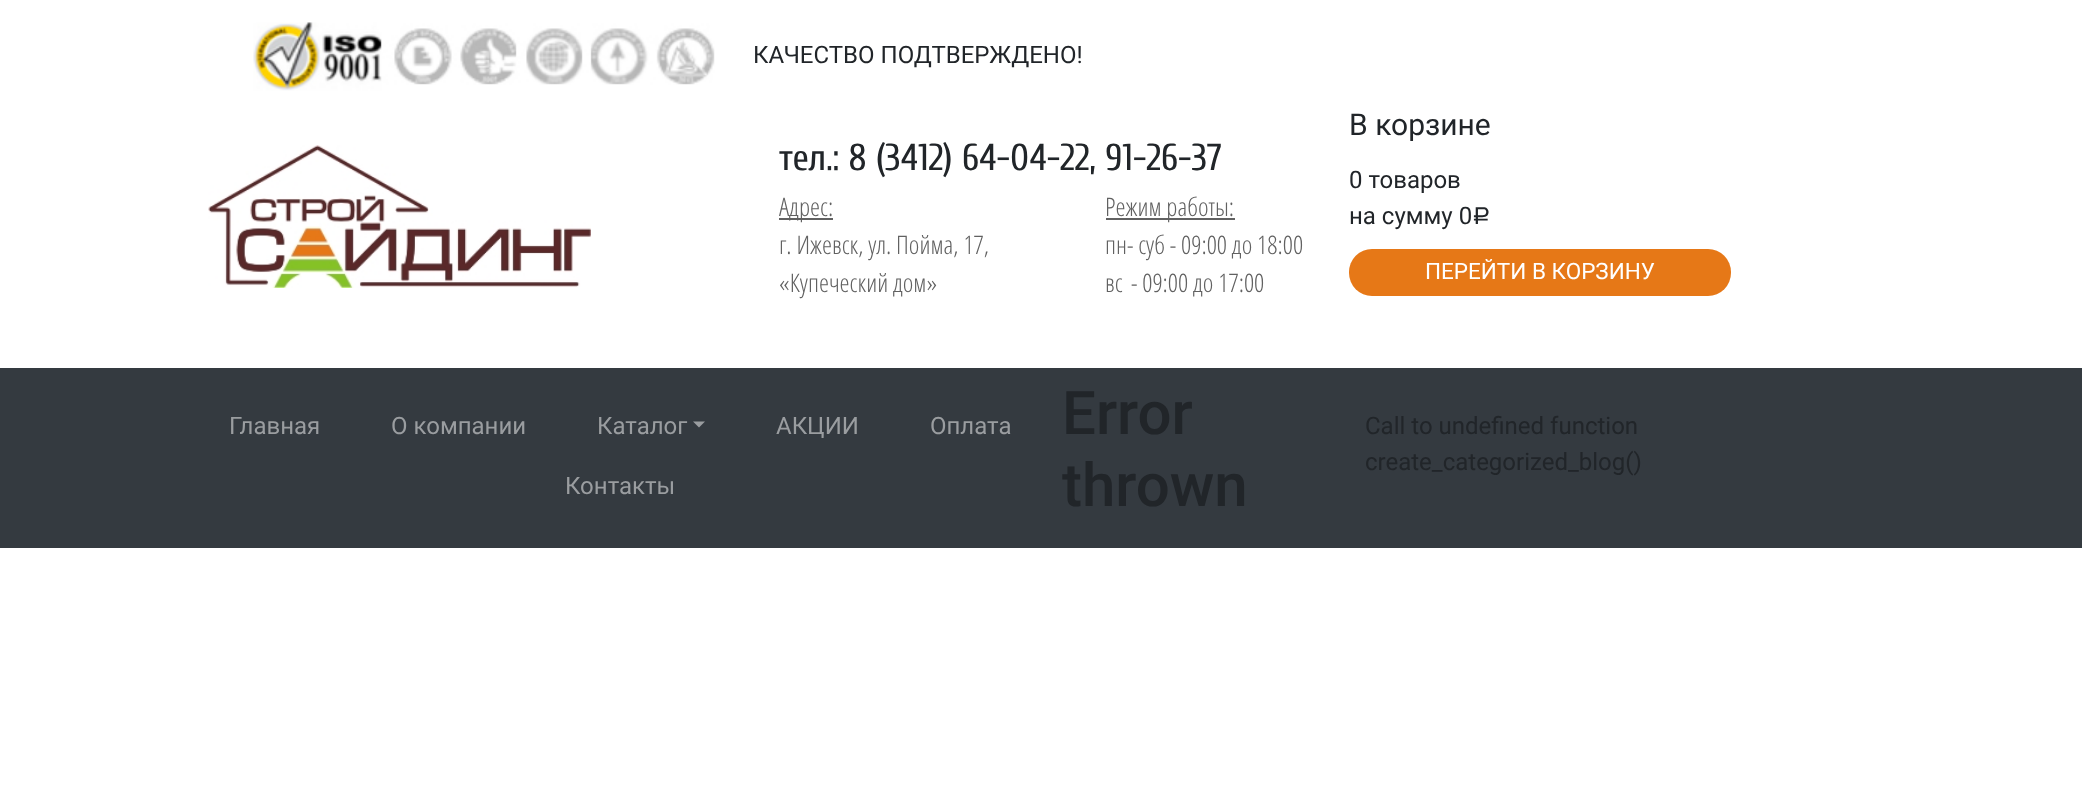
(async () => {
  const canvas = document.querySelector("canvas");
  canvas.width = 2082;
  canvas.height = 807;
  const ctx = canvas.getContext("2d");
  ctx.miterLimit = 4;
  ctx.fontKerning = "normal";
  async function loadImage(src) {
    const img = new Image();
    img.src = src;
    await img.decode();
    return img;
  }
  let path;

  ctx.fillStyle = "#ffffff";
  ctx.fillRect(0, 0, 2082, 807);
  ctx.drawImage(await loadImage("img/1.png"), 253, 22, 462, 69);
  ctx.drawImage(await loadImage("img/2.png"), 208, 145, 383, 143);
  ctx.fillStyle = "#616161";
  ctx.fillRect(779, 218, 54, 2);
  ctx.fillRect(1106, 218, 129, 2);
  ctx.fillStyle = "#e67817";
  ctx.beginPath();
  ctx.roundRect(1349, 249, 382, 47, 23);
  ctx.fill();
  ctx.fillStyle = "#343a40";
  ctx.fillRect(0, 368, 2082, 180);
  ctx.fillStyle = "#9a9da0";
  path = new Path2D("M693 421.5H705L699 427.5Z");
  ctx.fill(path);
  ctx.font = "24px Roboto";
  ctx.fillStyle = "#212529";
  ctx.fillText("КАЧЕСТВО ПОДТВЕРЖДЕНО!", 753, 63);
  ctx.font = "37.5px Cuprum";
  ctx.fillText("тел.: 8 (3412) 64-04-22, 91-26-37", 779, 170);
  ctx.font = "300 25.5px Open Sans Condensed";
  ctx.fillStyle = "#616161";
  for (const [text, x, y] of [
    ["Адрес:", 779, 216],
    ["г. Ижевск, ул. Пойма, 17,", 779, 254],
    ["«Купеческий дом»", 779, 292],
    ["Режим работы:", 1105, 216],
    ["пн- суб - 09:00 до 18:00", 1105, 254],
    ["вс", 1105, 292],
    ["- 09:00 до 17:00", 1131, 292],
  ]) {
    ctx.fillText(text, x, y);
  }
  ctx.font = "30px Roboto";
  ctx.fillStyle = "#212529";
  ctx.fillText("В корзине", 1349, 135);
  ctx.font = "24px Roboto";
  ctx.fillText("0 товаров", 1349, 188);
  ctx.fillText("на сумму 0", 1349, 224);
  ctx.font = "24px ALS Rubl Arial";
  ctx.fillText("Р", 1472, 224);
  ctx.font = "22.5px Roboto";
  ctx.fillStyle = "#ffffff";
  ctx.fillText("ПЕРЕЙТИ В КОРЗИНУ", 1425, 279);
  ctx.font = "24px Roboto";
  ctx.fillStyle = "#9a9da0";
  for (const [text, x, y] of [
    ["Главная", 229, 434],
    ["О компании", 391, 434],
    ["Каталог", 597, 434],
    ["АКЦИИ", 776, 434],
    ["Оплата", 930, 434],
    ["Контакты", 565, 494],
  ]) {
    ctx.fillText(text, x, y);
  }
  ctx.font = "500 60px Roboto";
  ctx.fillStyle = "#212529";
  ctx.fillText("Error", 1062, 434);
  ctx.fillText("thrown", 1062, 506);
  ctx.font = "24px Roboto";
  ctx.fillText("Call to undefined function", 1365, 434);
  ctx.fillText("create_categorized_blog()", 1365, 470);
})();
